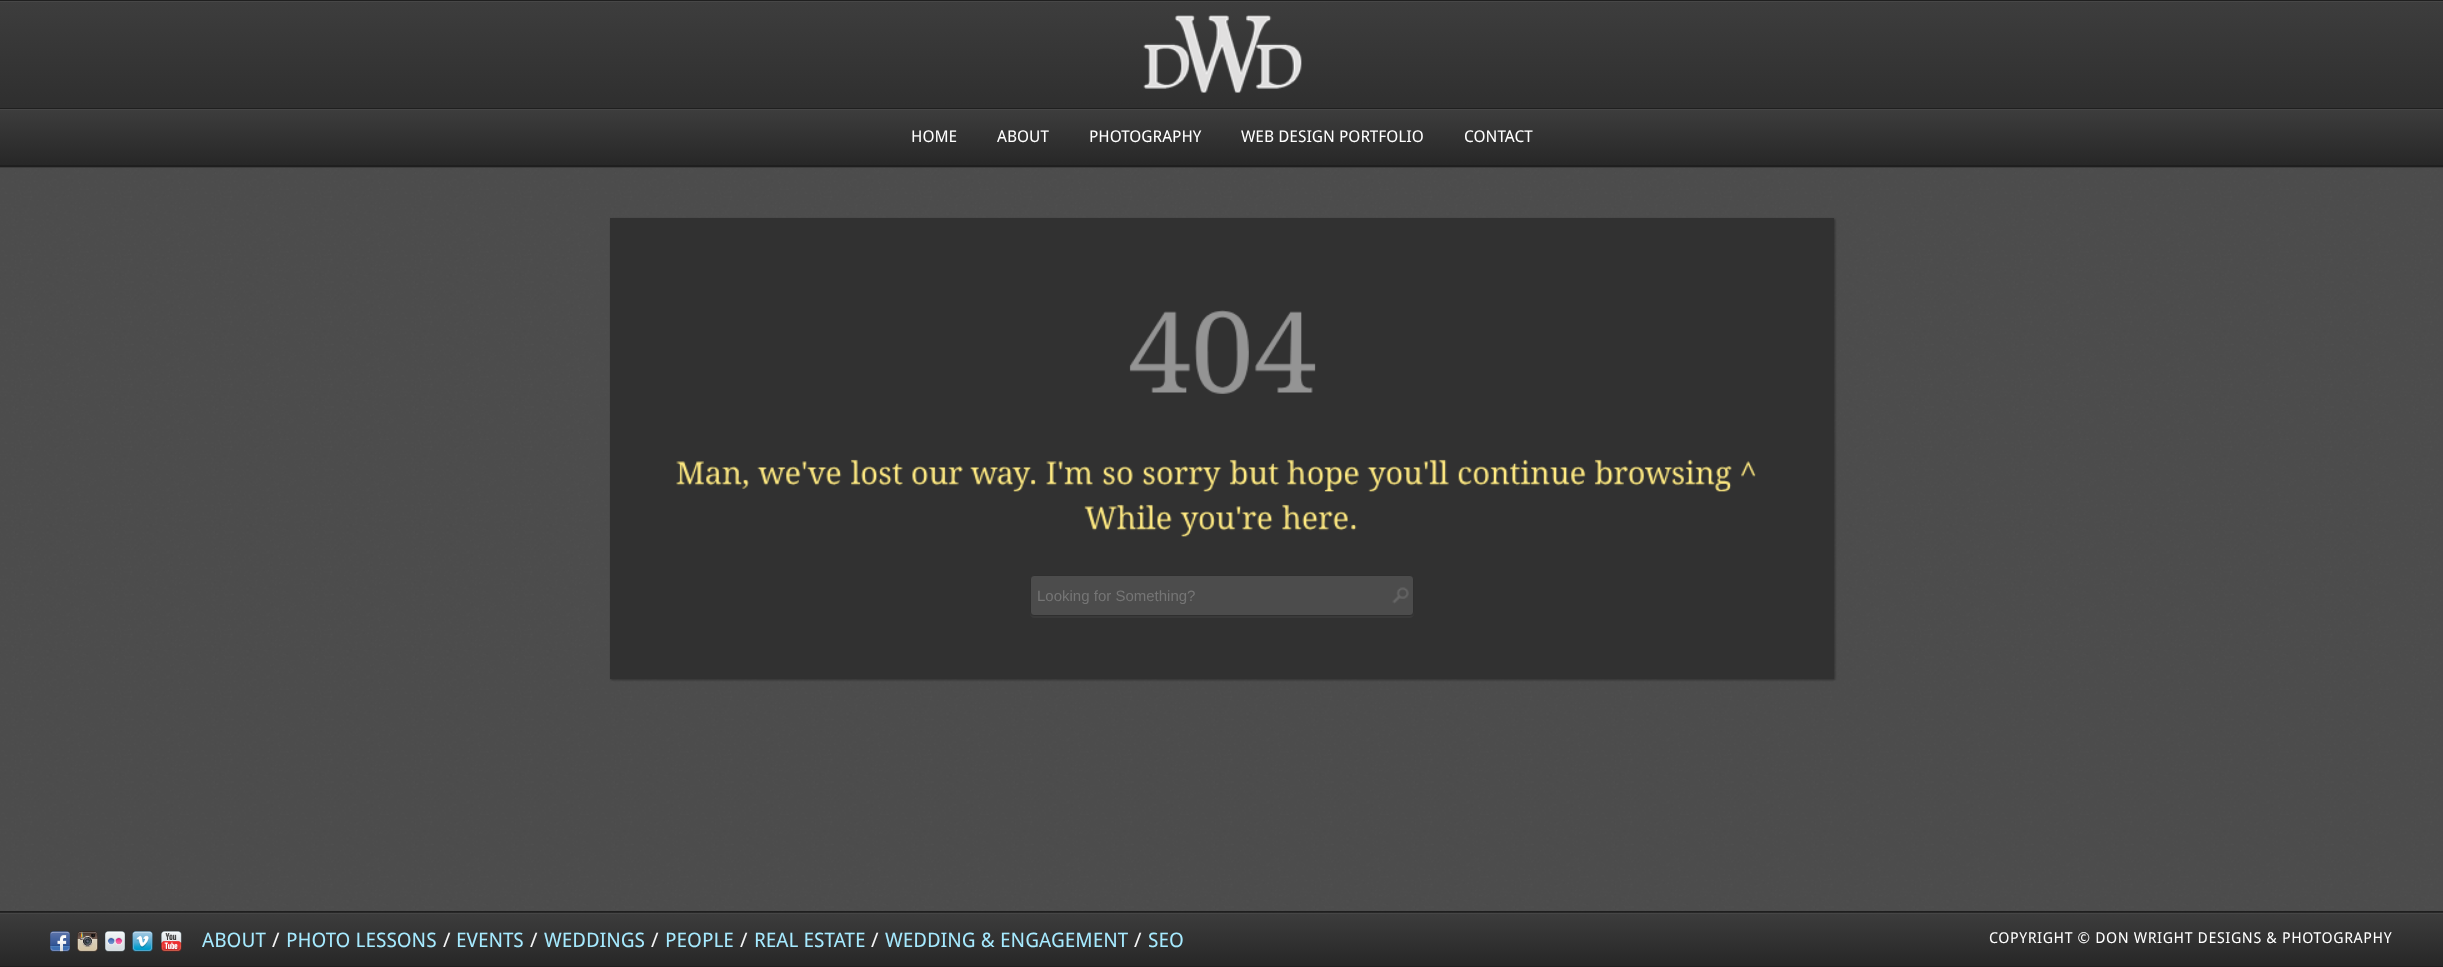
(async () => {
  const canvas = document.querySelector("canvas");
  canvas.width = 2443;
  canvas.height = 967;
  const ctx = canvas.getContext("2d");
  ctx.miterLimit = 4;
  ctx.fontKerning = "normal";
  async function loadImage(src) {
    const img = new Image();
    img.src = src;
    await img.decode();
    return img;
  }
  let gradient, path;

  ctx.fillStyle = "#6a6a6a";
  ctx.fillRect(0, 0, 2443, 967);
  ctx.drawImage(await loadImage("img/1.png"), 0, 168, 2443, 743);
  ctx.fillStyle = "rgba(0, 0, 0, 0.3)";
  ctx.filter = "blur(0.5px)";
  ctx.beginPath();
  ctx.rect(0, 0, 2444, 168);
  ctx.fill();
  ctx.filter = "none";
  gradient = ctx.createLinearGradient(1222, 1.2, 1222, 166);
  gradient.addColorStop(0, "#3d3d3d");
  gradient.addColorStop(1, "#272727");
  ctx.fillStyle = gradient;
  ctx.fillRect(0, 2, 2443, 106);
  gradient = ctx.createLinearGradient(1222, 166, 1222, 331);
  gradient.addColorStop(0, "#3d3d3d");
  gradient.addColorStop(1, "#272727");
  ctx.fillStyle = gradient;
  ctx.fillRect(0, 167, 2443, 1);
  for (const [x, y, w, h, color] of [
    [0, 1, 2443, 1, "#474747"],
    [0, 0, 2443, 1, "#1f1f1f"],
    [0, 165, 2443, 2, "#1f1f1f"],
  ]) {
    ctx.fillStyle = color;
    ctx.fillRect(x, y, w, h);
  }
  ctx.drawImage(await loadImage("img/2.png"), 1143, 15, 159, 78);
  gradient = ctx.createLinearGradient(1222, 109, 1222, 165);
  gradient.addColorStop(0, "#3d3d3d");
  gradient.addColorStop(1, "#272727");
  ctx.fillStyle = gradient;
  ctx.fillRect(0, 110, 2443, 55);
  ctx.fillStyle = "#474747";
  ctx.fillRect(0, 109, 2443, 1);
  ctx.fillStyle = "#1f1f1f";
  ctx.fillRect(0, 108, 2443, 1);
  ctx.fillStyle = "rgba(43, 43, 43, 0.8)";
  ctx.filter = "blur(1px)";
  ctx.beginPath();
  ctx.rect(611, 219, 1224, 461);
  ctx.fill();
  ctx.filter = "none";
  ctx.fillStyle = "#313131";
  ctx.fillRect(610, 218, 1224, 461);
  ctx.drawImage(await loadImage("img/3.png"), 1129, 310, 187, 84);
  ctx.drawImage(await loadImage("img/4.png"), 676, 461, 73, 28);
  ctx.drawImage(await loadImage("img/5.png"), 757, 461, 85, 25);
  ctx.drawImage(await loadImage("img/6.png"), 851, 459, 52, 27);
  ctx.drawImage(await loadImage("img/7.png"), 912, 466, 51, 20);
  ctx.drawImage(await loadImage("img/8.png"), 970, 466, 66, 26);
  ctx.drawImage(await loadImage("img/9.png"), 1046, 461, 47, 25);
  ctx.drawImage(await loadImage("img/10.png"), 1102, 466, 31, 20);
  ctx.drawImage(await loadImage("img/11.png"), 1142, 466, 80, 26);
  ctx.drawImage(await loadImage("img/12.png"), 1229, 459, 50, 27);
  ctx.drawImage(await loadImage("img/13.png"), 1287, 459, 72, 33);
  ctx.drawImage(await loadImage("img/14.png"), 1367, 459, 82, 33);
  ctx.drawImage(await loadImage("img/15.png"), 1458, 459, 128, 27);
  ctx.drawImage(await loadImage("img/16.png"), 1594, 459, 138, 33);
  ctx.drawImage(await loadImage("img/17.png"), 1741, 461, 15, 16);
  ctx.drawImage(await loadImage("img/18.png"), 1084, 504, 88, 27);
  ctx.drawImage(await loadImage("img/19.png"), 1180, 506, 93, 31);
  ctx.drawImage(await loadImage("img/20.png"), 1282, 504, 75, 27);
  ctx.fillStyle = "#393939";
  path = new Path2D("M1030 612V614C1030 616 1032 618 1034 618H1410C1412 618 1414 616 1414 614V579V612C1414 615 1412 616 1410 616H1034C1032 616 1030 615 1030 612Z");
  ctx.fill(path);
  ctx.fillStyle = "#4c4c4c";
  ctx.beginPath();
  ctx.roundRect(1030.5, 575.5, 383, 40, 3.5);
  ctx.fill();
  ctx.strokeStyle = "#2f2f2f";
  ctx.stroke();
  ctx.drawImage(await loadImage("img/21.png"), 1392, 587, 17, 17);
  ctx.fillStyle = "rgba(0, 0, 0, 0.3)";
  ctx.filter = "blur(0.5px)";
  ctx.beginPath();
  ctx.rect(0, 911, 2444, 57);
  ctx.fill();
  ctx.filter = "none";
  gradient = ctx.createLinearGradient(1222, 859, 1222, 913);
  gradient.addColorStop(0, "#3d3d3d");
  gradient.addColorStop(1, "#272727");
  ctx.fillStyle = gradient;
  ctx.fillRect(0, 912, 2443, 1);
  gradient = ctx.createLinearGradient(1222, 912, 1222, 966);
  gradient.addColorStop(0, "#3d3d3d");
  gradient.addColorStop(1, "#272727");
  ctx.fillStyle = gradient;
  ctx.fillRect(0, 914, 2443, 52);
  for (const [x, y, w, h, color] of [
    [0, 913, 2443, 1, "#464646"],
    [0, 911, 2443, 1, "#1f1f1f"],
    [0, 966, 2443, 1, "#1f1f1f"],
  ]) {
    ctx.fillStyle = color;
    ctx.fillRect(x, y, w, h);
  }
  ctx.drawImage(await loadImage("img/22.png"), 50, 931, 20, 21);
  ctx.drawImage(await loadImage("img/23.png"), 77, 931, 21, 21);
  ctx.drawImage(await loadImage("img/24.png"), 105, 931, 20, 21);
  ctx.drawImage(await loadImage("img/25.png"), 132, 931, 21, 21);
  ctx.drawImage(await loadImage("img/26.png"), 161, 931, 21, 21);
  ctx.font = "16.25px Droid Sans";
  ctx.fillStyle = "#ffffff";
  for (const [text, x, y] of [
    ["HOME", 911, 142],
    ["ABOUT", 997, 142],
    ["PHOTOGRAPHY", 1089, 142],
    ["WEB DESIGN PORTFOLIO", 1241, 142],
    ["CONTACT", 1464, 142],
  ]) {
    ctx.fillText(text, x, y);
  }
  ctx.font = "15px Liberation Sans";
  ctx.fillStyle = "#757575";
  ctx.fillText("Looking for Something?", 1037, 601);
  ctx.font = "20px Droid Sans";
  ctx.fillStyle = "#a6eaff";
  ctx.fillText("ABOUT", 202, 947);
  ctx.fillStyle = "#f5f5f5";
  ctx.fillText("/", 272, 947);
  ctx.fillStyle = "#a6eaff";
  ctx.fillText("PHOTO LESSONS", 286, 947);
  ctx.fillStyle = "#f5f5f5";
  ctx.fillText("/", 443, 947);
  ctx.fillStyle = "#a6eaff";
  ctx.fillText("EVENTS", 456, 947);
  ctx.fillStyle = "#f5f5f5";
  ctx.fillText("/", 530, 947);
  ctx.fillStyle = "#a6eaff";
  ctx.fillText("WEDDINGS", 544, 947);
  ctx.fillStyle = "#f5f5f5";
  ctx.fillText("/", 651, 947);
  ctx.fillStyle = "#a6eaff";
  ctx.fillText("PEOPLE", 665, 947);
  ctx.fillStyle = "#f5f5f5";
  ctx.fillText("/", 740, 947);
  ctx.fillStyle = "#a6eaff";
  ctx.fillText("REAL ESTATE", 754, 947);
  ctx.fillStyle = "#f5f5f5";
  ctx.fillText("/", 871, 947);
  ctx.fillStyle = "#a6eaff";
  ctx.fillText("WEDDING & ENGAGEMENT", 885, 947);
  ctx.fillStyle = "#f5f5f5";
  ctx.fillText("/", 1134, 947);
  ctx.fillStyle = "#a6eaff";
  ctx.fillText("SEO", 1148, 947);
  ctx.letterSpacing = "0.6px";
  ctx.font = "15px Droid Sans";
  ctx.fillStyle = "#ffffff";
  ctx.fillText("COPYRIGHT © DON WRIGHT DESIGNS & PHOTOGRAPHY", 1989, 943);
})();
